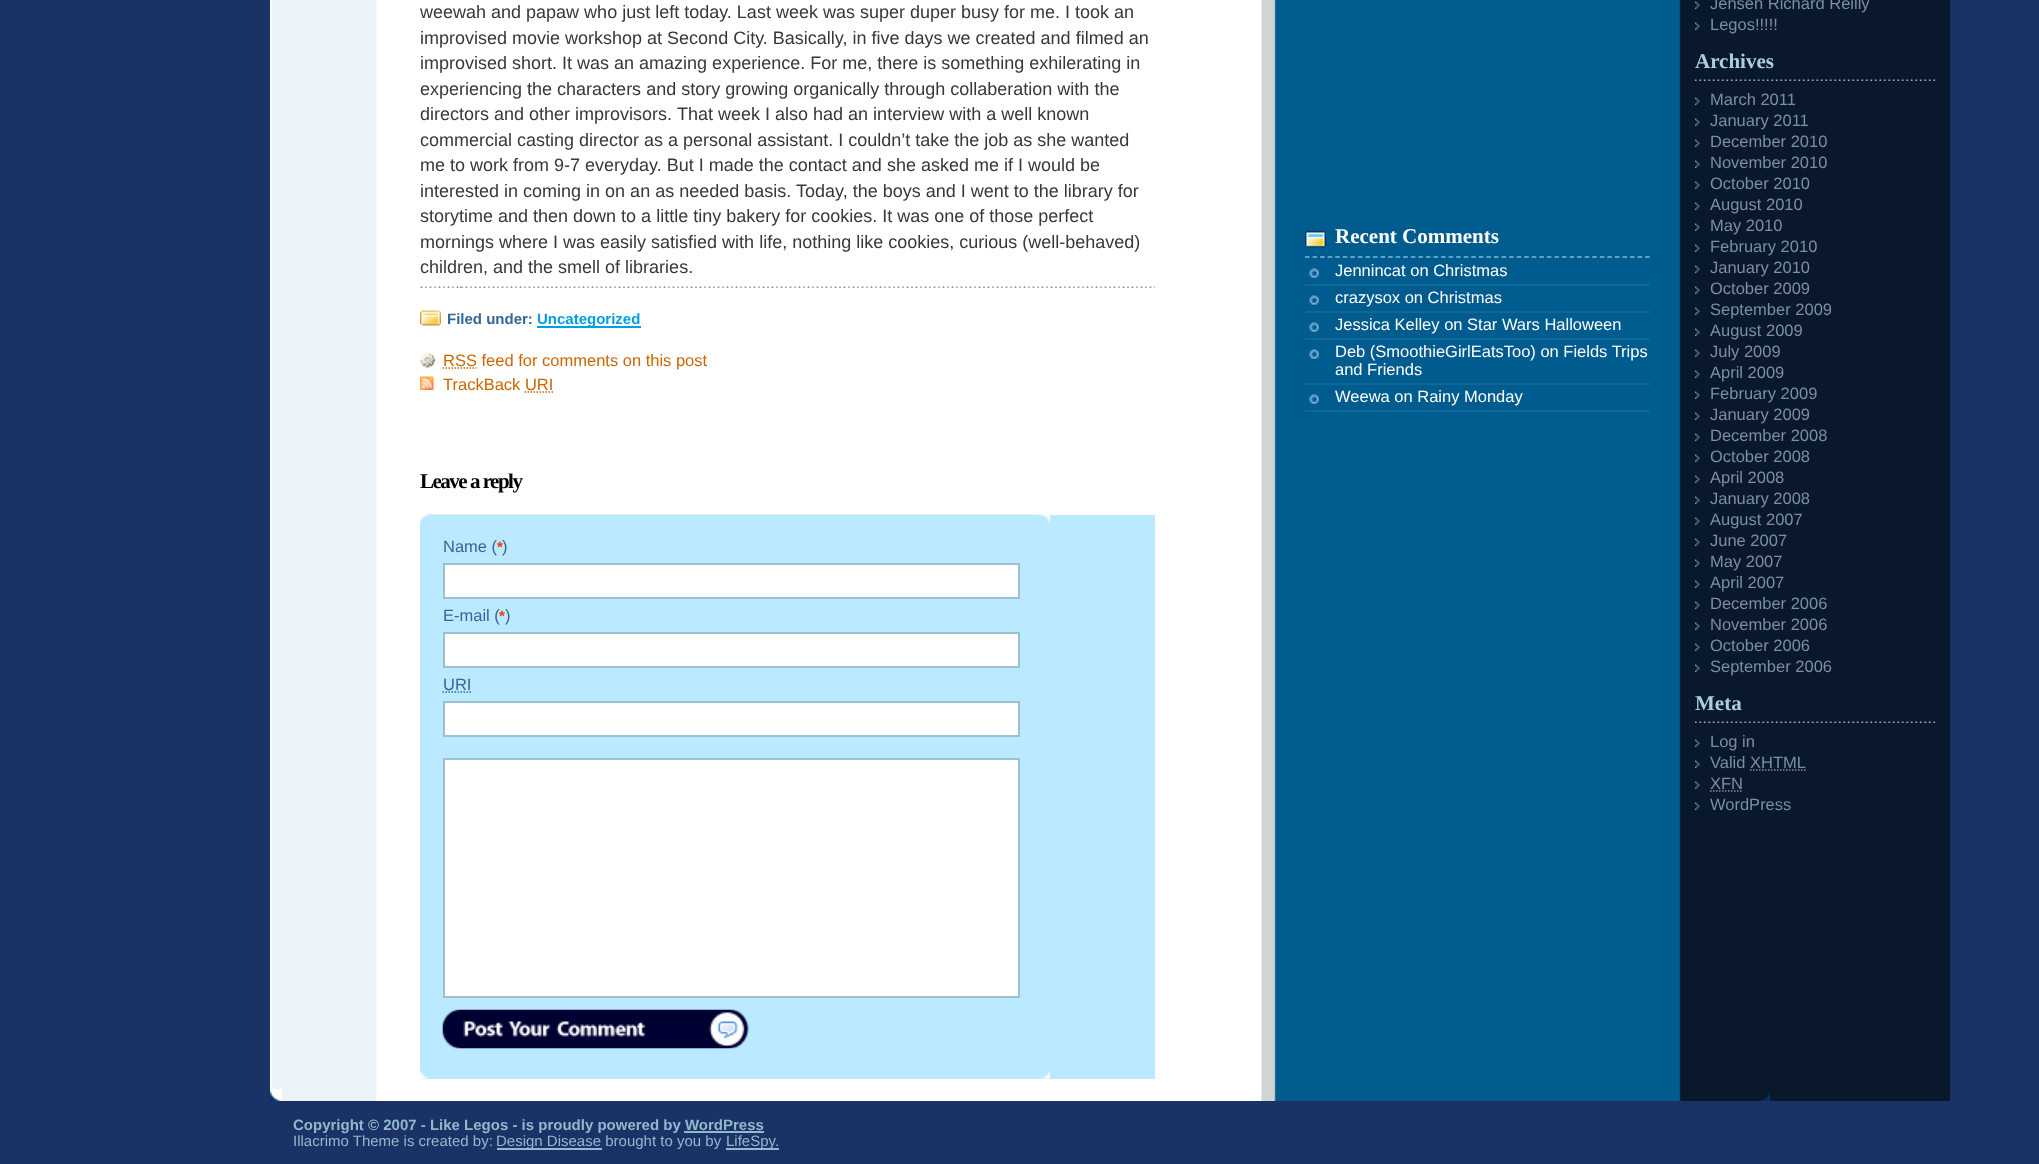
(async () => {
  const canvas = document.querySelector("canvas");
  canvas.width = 2039;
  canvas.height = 1164;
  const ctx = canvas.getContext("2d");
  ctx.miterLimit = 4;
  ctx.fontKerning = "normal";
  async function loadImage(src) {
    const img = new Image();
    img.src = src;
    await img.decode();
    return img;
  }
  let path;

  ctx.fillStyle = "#1a3265";
  ctx.fillRect(0, 0, 2039, 1164);
  ctx.fillStyle = "#ffffff";
  ctx.fillRect(270, 0, 1, 1089);
  ctx.drawImage(await loadImage("img/1.png"), 271, 0, 1679, 1101);
  ctx.drawImage(await loadImage("img/2.png"), 420, 286, 735, 2);
  ctx.drawImage(await loadImage("img/3.png"), 420, 310, 21, 16);
  ctx.fillStyle = "#00a0e3";
  ctx.fillRect(537, 326, 104, 2);
  ctx.drawImage(await loadImage("img/4.png"), 420, 352, 15, 16);
  path = new Path2D("M442.5 368H476.5");
  ctx.strokeStyle = "#cc6600";
  ctx.lineWidth = 1.5;
  ctx.setLineDash([1.5, 1.5]);
  ctx.stroke(path);
  ctx.drawImage(await loadImage("img/5.png"), 420, 376, 14, 14);
  path = new Path2D("M524.5 392H553");
  ctx.stroke(path);
  ctx.fillStyle = "#bbe9ff";
  ctx.fillRect(420, 515, 735, 564);
  ctx.drawImage(await loadImage("img/6.png"), 420, 1069, 630, 10);
  ctx.drawImage(await loadImage("img/7.png"), 420, 514, 630, 10);
  ctx.fillStyle = "#ffffff";
  ctx.beginPath();
  ctx.rect(444, 564, 575, 34);
  ctx.fill();
  ctx.strokeStyle = "#9dc0d0";
  ctx.lineWidth = 2;
  ctx.setLineDash([]);
  ctx.stroke();
  ctx.beginPath();
  ctx.rect(444, 633, 575, 34);
  ctx.fill();
  ctx.stroke();
  path = new Path2D("M442.5 692H471");
  ctx.strokeStyle = "#336699";
  ctx.lineWidth = 1.5;
  ctx.setLineDash([1.5, 1.5]);
  ctx.stroke(path);
  ctx.beginPath();
  ctx.rect(444, 702, 575, 34);
  ctx.fill();
  ctx.strokeStyle = "#9dc0d0";
  ctx.lineWidth = 2;
  ctx.setLineDash([]);
  ctx.stroke();
  ctx.beginPath();
  ctx.rect(444, 759, 575, 238);
  ctx.fill();
  ctx.stroke();
  ctx.drawImage(await loadImage("img/8.png"), 442, 1009, 307, 40);
  ctx.drawImage(await loadImage("img/9.png"), 1305, 230, 21, 18);
  path = new Path2D("M1305 257H1650");
  ctx.strokeStyle = "#7bb9d9";
  ctx.lineWidth = 1.5;
  ctx.setLineDash([4.5, 3.06]);
  ctx.stroke(path);
  ctx.drawImage(await loadImage("img/10.png"), 1309, 268, 10, 10);
  ctx.fillStyle = "#106899";
  ctx.fillRect(1305, 284, 345, 2);
  ctx.drawImage(await loadImage("img/10.png"), 1309, 295, 10, 10);
  ctx.fillRect(1305, 311, 345, 2);
  ctx.drawImage(await loadImage("img/10.png"), 1309, 322, 10, 10);
  ctx.fillRect(1305, 338, 345, 2);
  ctx.drawImage(await loadImage("img/10.png"), 1309, 349, 10, 10);
  ctx.fillRect(1305, 383, 345, 2);
  ctx.drawImage(await loadImage("img/10.png"), 1309, 394, 10, 10);
  ctx.fillRect(1305, 410, 345, 2);
  ctx.drawImage(await loadImage("img/11.png"), 1695, 1, 5, 8);
  ctx.drawImage(await loadImage("img/11.png"), 1695, 22, 5, 8);
  ctx.drawImage(await loadImage("img/12.png"), 1695, 79, 240, 2);
  ctx.drawImage(await loadImage("img/11.png"), 1695, 97, 5, 8);
  ctx.drawImage(await loadImage("img/11.png"), 1695, 118, 5, 8);
  ctx.drawImage(await loadImage("img/11.png"), 1695, 139, 5, 8);
  ctx.drawImage(await loadImage("img/11.png"), 1695, 160, 5, 8);
  ctx.drawImage(await loadImage("img/11.png"), 1695, 181, 5, 8);
  ctx.drawImage(await loadImage("img/11.png"), 1695, 202, 5, 8);
  ctx.drawImage(await loadImage("img/11.png"), 1695, 223, 5, 8);
  ctx.drawImage(await loadImage("img/11.png"), 1695, 244, 5, 8);
  ctx.drawImage(await loadImage("img/11.png"), 1695, 265, 5, 8);
  ctx.drawImage(await loadImage("img/11.png"), 1695, 286, 5, 8);
  ctx.drawImage(await loadImage("img/11.png"), 1695, 307, 5, 8);
  ctx.drawImage(await loadImage("img/11.png"), 1695, 328, 5, 8);
  ctx.drawImage(await loadImage("img/11.png"), 1695, 349, 5, 8);
  ctx.drawImage(await loadImage("img/11.png"), 1695, 370, 5, 8);
  ctx.drawImage(await loadImage("img/11.png"), 1695, 391, 5, 8);
  ctx.drawImage(await loadImage("img/11.png"), 1695, 412, 5, 8);
  ctx.drawImage(await loadImage("img/11.png"), 1695, 433, 5, 8);
  ctx.drawImage(await loadImage("img/11.png"), 1695, 454, 5, 8);
  ctx.drawImage(await loadImage("img/11.png"), 1695, 475, 5, 8);
  ctx.drawImage(await loadImage("img/11.png"), 1695, 496, 5, 8);
  ctx.drawImage(await loadImage("img/11.png"), 1695, 517, 5, 8);
  ctx.drawImage(await loadImage("img/11.png"), 1695, 538, 5, 8);
  ctx.drawImage(await loadImage("img/11.png"), 1695, 559, 5, 8);
  ctx.drawImage(await loadImage("img/11.png"), 1695, 580, 5, 8);
  ctx.drawImage(await loadImage("img/11.png"), 1695, 601, 5, 8);
  ctx.drawImage(await loadImage("img/11.png"), 1695, 622, 5, 8);
  ctx.drawImage(await loadImage("img/11.png"), 1695, 643, 5, 8);
  ctx.drawImage(await loadImage("img/11.png"), 1695, 664, 5, 8);
  ctx.drawImage(await loadImage("img/13.png"), 1695, 721, 240, 2);
  ctx.drawImage(await loadImage("img/11.png"), 1695, 739, 5, 8);
  ctx.drawImage(await loadImage("img/11.png"), 1695, 760, 5, 8);
  path = new Path2D("M1750 770H1806");
  ctx.strokeStyle = "#7a8fa4";
  ctx.setLineDash([1.5, 1.5]);
  ctx.stroke(path);
  ctx.drawImage(await loadImage("img/11.png"), 1695, 781, 5, 8);
  path = new Path2D("M1710 791H1743");
  ctx.stroke(path);
  ctx.drawImage(await loadImage("img/11.png"), 1695, 802, 5, 8);
  ctx.drawImage(await loadImage("img/14.png"), 270, 1089, 12, 12);
  ctx.drawImage(await loadImage("img/15.png"), 1760, 1092, 10, 9);
  for (const [x, y, w, h, color] of [
    [684, 1131, 80, 2, "#92b8cd"],
    [497, 1148, 105, 2, "#92b8cd"],
    [726, 1148, 53, 2, "#92b8cd"],
  ]) {
    ctx.fillStyle = color;
    ctx.fillRect(x, y, w, h);
  }
  ctx.font = "18px Liberation Sans";
  ctx.fillStyle = "#35383d";
  for (const [text, x, y] of [
    ["weewah and papaw who just left today. Last week was super duper busy for me. I took an", 420, 18],
    ["improvised movie workshop at Second City. Basically, in five days we created and filmed an", 420, 44],
    ["improvised short. It was an amazing experience. For me, there is something exhilerating in", 420, 69],
    ["experiencing the characters and story growing organically through collaberation with the", 420, 95],
    ["directors and other improvisors.", 420, 120],
    ["That week I also had an interview with a well known", 677, 120],
    ["commercial casting director as a personal assistant. I couldn’t take the job as she wanted", 420, 146],
    ["me to work from 9-7 everyday. But I made the contact and she asked me if I would be", 420, 171],
    ["interested in coming in on an as needed basis.", 420, 197],
    ["Today, the boys and I went to the library for", 796, 197],
    ["storytime and then down to a little tiny bakery for cookies. It was one of those perfect", 420, 222],
    ["mornings where I was easily satisfied with life, nothing like cookies, curious (well-behaved)", 420, 248],
    ["children, and the smell of libraries.", 420, 273],
  ]) {
    ctx.fillText(text, x, y);
  }
  ctx.font = "bold 15px Liberation Sans";
  ctx.fillStyle = "#336699";
  ctx.fillText("Filed under:", 447, 324);
  ctx.fillStyle = "#00a0e3";
  ctx.fillText("Uncategorized", 537, 324);
  ctx.font = "16.5px Liberation Sans";
  ctx.fillStyle = "#cc6600";
  ctx.fillText("RSS feed for comments on this post", 443, 366);
  ctx.fillText("TrackBack URI", 443, 390);
  ctx.letterSpacing = "-1.5px";
  ctx.font = "bold 21px Liberation Serif";
  ctx.fillStyle = "#000000";
  ctx.fillText("Leave a reply", 420, 488);
  ctx.letterSpacing = "0px";
  ctx.font = "16.5px Liberation Sans";
  ctx.fillStyle = "#336699";
  ctx.fillText("Name (", 443, 552);
  ctx.font = "bold 15px Liberation Sans";
  ctx.fillStyle = "#ff3300";
  ctx.fillText("*", 497, 552);
  ctx.font = "16.5px Liberation Sans";
  ctx.fillStyle = "#336699";
  ctx.fillText(")", 502, 552);
  ctx.fillText("E-mail (", 443, 621);
  ctx.font = "bold 15px Liberation Sans";
  ctx.fillStyle = "#ff3300";
  ctx.fillText("*", 499, 621);
  ctx.font = "16.5px Liberation Sans";
  ctx.fillStyle = "#336699";
  ctx.fillText(")", 505, 621);
  ctx.fillText("URI", 443, 690);
  ctx.font = "bold 21px Liberation Serif";
  ctx.fillStyle = "#ffffff";
  ctx.fillText("Recent Comments", 1335, 243);
  ctx.font = "16.5px Liberation Sans";
  for (const [text, x, y] of [
    ["Jennincat on Christmas", 1335, 276],
    ["crazysox on Christmas", 1335, 303],
    ["Jessica Kelley on Star Wars Halloween", 1335, 330],
    ["Deb (SmoothieGirlEatsToo) on Fields Trips", 1335, 357],
    ["and Friends", 1335, 375],
    ["Weewa on Rainy Monday", 1335, 402],
  ]) {
    ctx.fillText(text, x, y);
  }
  ctx.fillStyle = "#7a8fa4";
  ctx.fillText("Jensen Richard Reilly", 1710, 9);
  ctx.fillText("Legos!!!!!", 1710, 30);
  ctx.font = "bold 21px Liberation Serif";
  ctx.fillStyle = "#abcee1";
  ctx.fillText("Archives", 1695, 68);
  ctx.font = "16.5px Liberation Sans";
  ctx.fillStyle = "#7a8fa4";
  for (const [text, x, y] of [
    ["March 2011", 1710, 105],
    ["January 2011", 1710, 126],
    ["December 2010", 1710, 147],
    ["November 2010", 1710, 168],
    ["October 2010", 1710, 189],
    ["August 2010", 1710, 210],
    ["May 2010", 1710, 231],
    ["February 2010", 1710, 252],
    ["January 2010", 1710, 273],
    ["October 2009", 1710, 294],
    ["September 2009", 1710, 315],
    ["August 2009", 1710, 336],
    ["July 2009", 1710, 357],
    ["April 2009", 1710, 378],
    ["February 2009", 1710, 399],
    ["January 2009", 1710, 420],
    ["December 2008", 1710, 441],
    ["October 2008", 1710, 462],
    ["April 2008", 1710, 483],
    ["January 2008", 1710, 504],
    ["August 2007", 1710, 525],
    ["June 2007", 1710, 546],
    ["May 2007", 1710, 567],
    ["April 2007", 1710, 588],
    ["December 2006", 1710, 609],
    ["November 2006", 1710, 630],
    ["October 2006", 1710, 651],
    ["September 2006", 1710, 672],
  ]) {
    ctx.fillText(text, x, y);
  }
  ctx.font = "bold 21px Liberation Serif";
  ctx.fillStyle = "#abcee1";
  ctx.fillText("Meta", 1695, 710);
  ctx.font = "16.5px Liberation Sans";
  ctx.fillStyle = "#7a8fa4";
  for (const [text, x, y] of [
    ["Log in", 1710, 747],
    ["Valid XHTML", 1710, 768],
    ["XFN", 1710, 789],
    ["WordPress", 1710, 810],
  ]) {
    ctx.fillText(text, x, y);
  }
  ctx.font = "bold 15px Liberation Sans";
  ctx.fillStyle = "#92b8cd";
  ctx.fillText("Copyright © 2007 - Like Legos - is proudly powered by WordPress", 293, 1130);
  ctx.font = "15px Liberation Sans";
  for (const [text, x, y] of [
    ["Illacrimo Theme is created by:", 293, 1146],
    ["Design Disease brought to you by", 496, 1146],
    ["LifeSpy.", 726, 1146],
  ]) {
    ctx.fillText(text, x, y);
  }
})();
